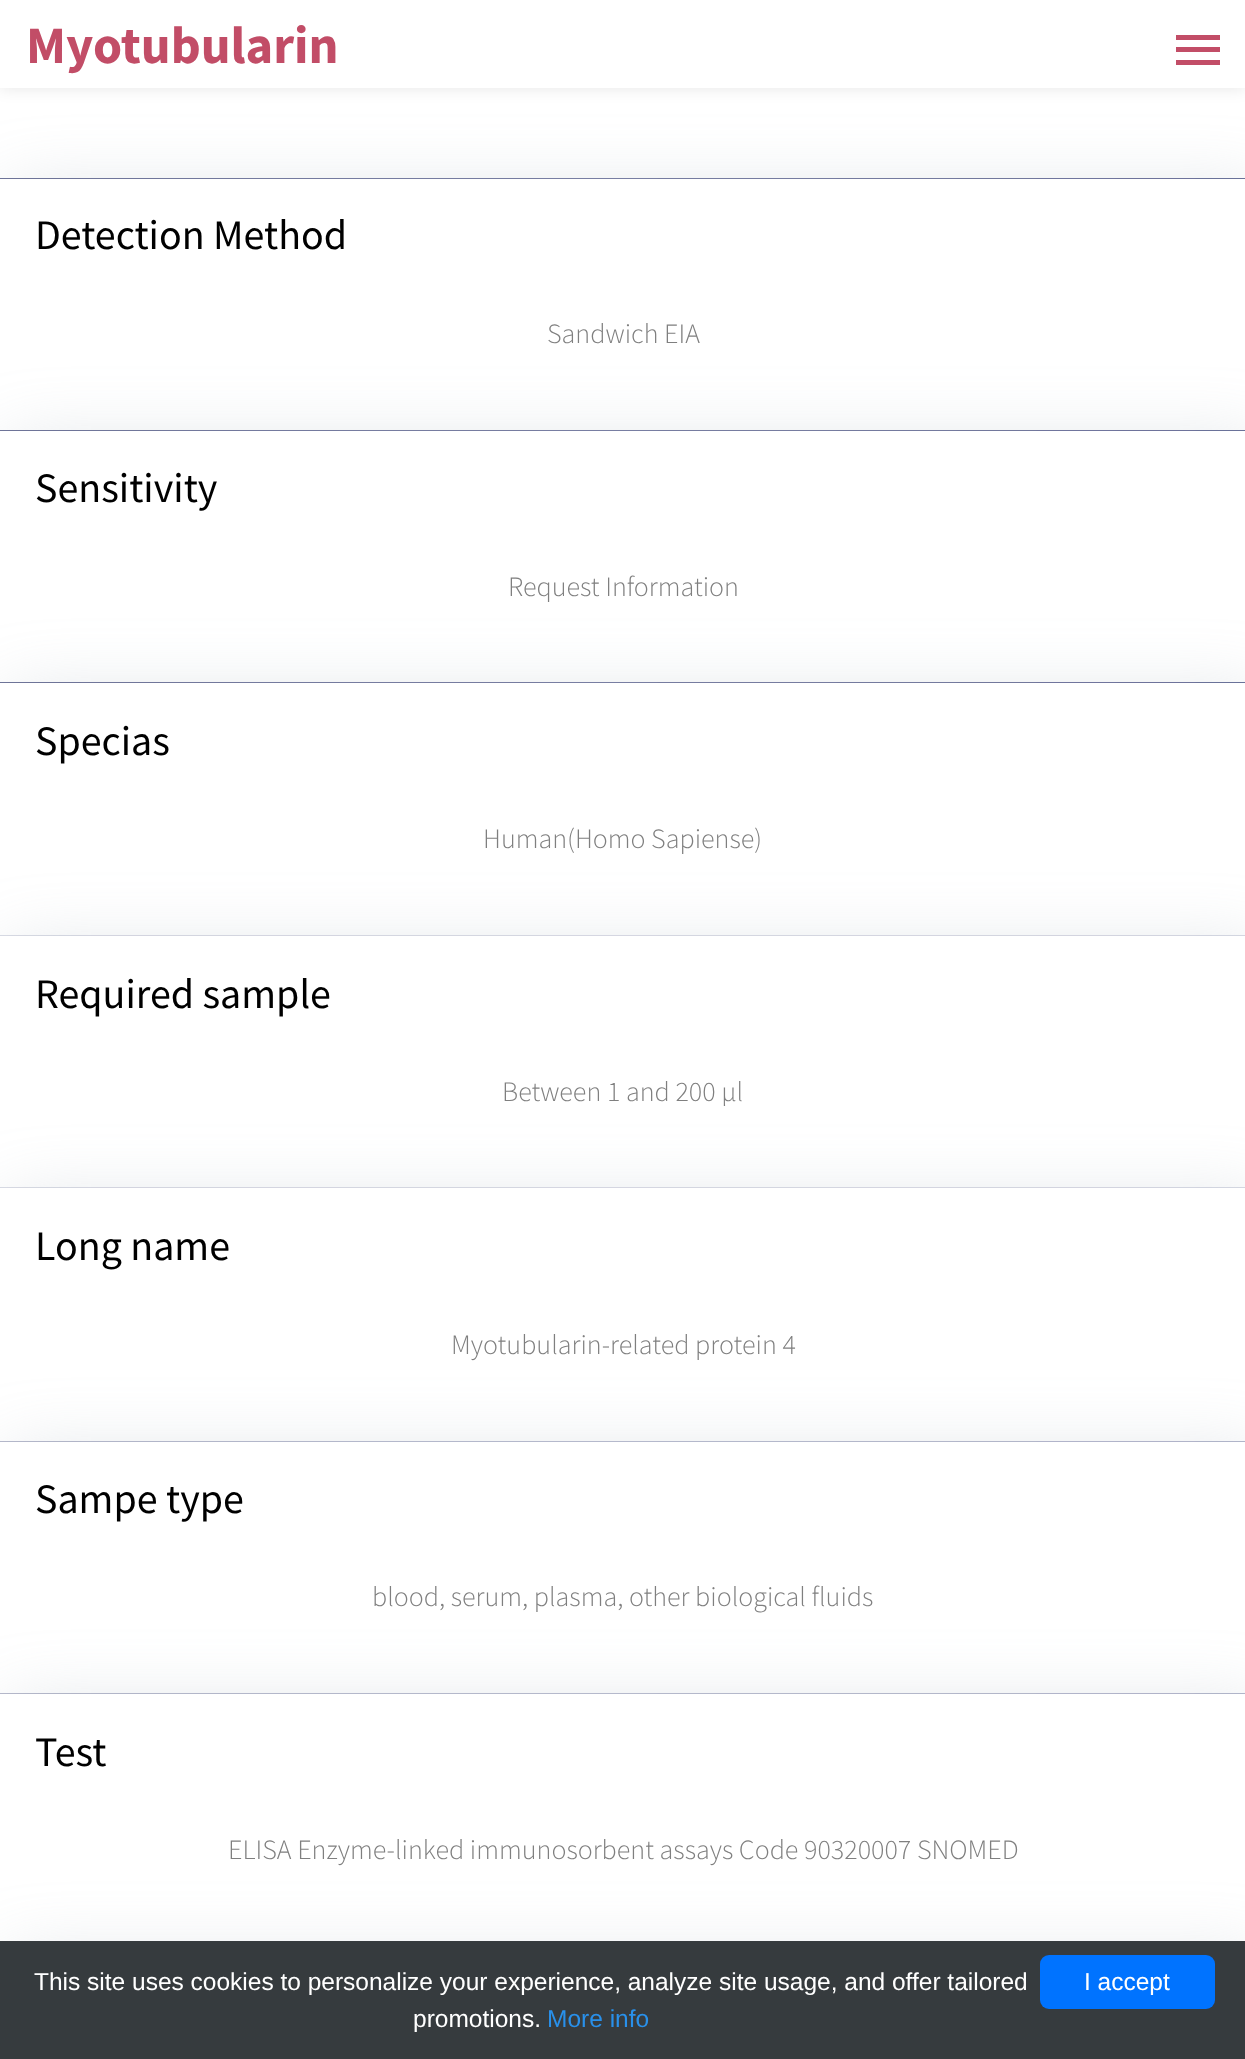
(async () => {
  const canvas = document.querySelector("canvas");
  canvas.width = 1245;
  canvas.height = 2059;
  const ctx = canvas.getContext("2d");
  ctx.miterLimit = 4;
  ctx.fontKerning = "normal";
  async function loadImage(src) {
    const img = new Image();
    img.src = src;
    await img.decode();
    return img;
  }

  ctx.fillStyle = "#ffffff";
  ctx.fillRect(0, 0, 1245, 2059);
  ctx.fillStyle = "rgba(0, 0, 0, 0.1)";
  ctx.filter = "blur(8px)";
  ctx.beginPath();
  ctx.rect(0, 0, 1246, 88);
  ctx.fill();
  ctx.filter = "none";
  ctx.fillStyle = "rgba(163, 174, 184, 0.4)";
  ctx.filter = "blur(37px)";
  ctx.beginPath();
  ctx.rect(7, 198, 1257, 262);
  ctx.fill();
  ctx.filter = "none";
  for (const [x, y, w, h, color] of [
    [0, 0, 1245, 88, "#ffffff"],
    [1176, 47, 44, 5, "#c24d67"],
    [1176, 35, 44, 5, "#c24d67"],
    [1176, 60, 44, 5, "#c24d67"],
  ]) {
    ctx.fillStyle = color;
    ctx.fillRect(x, y, w, h);
  }
  ctx.drawImage(await loadImage("img/1.png"), 0, 178, 1245, 1);
  ctx.fillStyle = "#ffffff";
  ctx.fillRect(0, 179, 1245, 251);
  ctx.fillStyle = "rgba(163, 174, 184, 0.4)";
  ctx.filter = "blur(37px)";
  ctx.beginPath();
  ctx.rect(7, 450, 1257, 262);
  ctx.fill();
  ctx.filter = "none";
  ctx.drawImage(await loadImage("img/1.png"), 0, 430, 1245, 1);
  ctx.fillStyle = "#ffffff";
  ctx.fillRect(0, 431, 1245, 251);
  ctx.fillStyle = "rgba(163, 174, 184, 0.4)";
  ctx.filter = "blur(37px)";
  ctx.beginPath();
  ctx.rect(7, 702, 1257, 264);
  ctx.fill();
  ctx.filter = "none";
  ctx.drawImage(await loadImage("img/1.png"), 0, 682, 1245, 1);
  ctx.fillStyle = "#ffffff";
  ctx.fillRect(0, 683, 1245, 253);
  ctx.fillStyle = "rgba(163, 174, 184, 0.4)";
  ctx.filter = "blur(37px)";
  ctx.beginPath();
  ctx.rect(7, 956, 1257, 262);
  ctx.fill();
  ctx.filter = "none";
  ctx.drawImage(await loadImage("img/2.png"), 0, 935, 1245, 1);
  ctx.fillStyle = "#ffffff";
  ctx.fillRect(0, 936, 1245, 252);
  ctx.fillStyle = "rgba(163, 174, 184, 0.4)";
  ctx.filter = "blur(37px)";
  ctx.beginPath();
  ctx.rect(7, 1208, 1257, 264);
  ctx.fill();
  ctx.filter = "none";
  ctx.drawImage(await loadImage("img/2.png"), 0, 1187, 1245, 1);
  ctx.fillStyle = "#ffffff";
  ctx.fillRect(0, 1188, 1245, 254);
  ctx.fillStyle = "rgba(163, 174, 184, 0.4)";
  ctx.filter = "blur(37px)";
  ctx.beginPath();
  ctx.rect(7, 1461, 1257, 263);
  ctx.fill();
  ctx.filter = "none";
  ctx.drawImage(await loadImage("img/3.png"), 0, 1441, 1245, 1);
  ctx.fillStyle = "#ffffff";
  ctx.fillRect(0, 1442, 1245, 252);
  ctx.fillStyle = "rgba(163, 174, 184, 0.4)";
  ctx.filter = "blur(37px)";
  ctx.beginPath();
  ctx.rect(7, 1713, 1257, 263);
  ctx.fill();
  ctx.filter = "none";
  ctx.drawImage(await loadImage("img/3.png"), 0, 1693, 1245, 1);
  ctx.fillStyle = "#ffffff";
  ctx.fillRect(0, 1694, 1245, 247);
  ctx.fillStyle = "rgba(163, 174, 184, 0.4)";
  ctx.filter = "blur(37px)";
  ctx.beginPath();
  ctx.rect(7, 1965, 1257, 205);
  ctx.fill();
  ctx.filter = "none";
  ctx.fillStyle = "#363b3e";
  ctx.fillRect(0, 1941, 1245, 118);
  ctx.fillStyle = "#0073ff";
  ctx.beginPath();
  ctx.roundRect(1040, 1955, 175, 54, 9);
  ctx.fill();
  ctx.font = "bold 52.5px Source Sans Pro";
  ctx.fillStyle = "#c24d67";
  ctx.fillText("Myotubularin", 26, 63);
  ctx.font = "42px Source Sans Pro";
  ctx.fillStyle = "#000000";
  ctx.fillText("Detection Method", 35, 249);
  ctx.font = "300 28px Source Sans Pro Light";
  ctx.fillStyle = "#7f7f7f";
  ctx.fillText("Sandwich EIA", 547, 343);
  ctx.font = "42px Source Sans Pro";
  ctx.fillStyle = "#000000";
  ctx.fillText("Sensitivity", 35, 502);
  ctx.font = "300 28px Source Sans Pro Light";
  ctx.fillStyle = "#7f7f7f";
  ctx.fillText("Request Information", 508, 596);
  ctx.font = "42px Source Sans Pro";
  ctx.fillStyle = "#000000";
  ctx.fillText("Specias", 35, 755);
  ctx.font = "300 28px Source Sans Pro Light";
  ctx.fillStyle = "#7f7f7f";
  ctx.fillText("Human(Homo Sapiense)", 483, 848);
  ctx.font = "42px Source Sans Pro";
  ctx.fillStyle = "#000000";
  ctx.fillText("Required sample", 35, 1008);
  ctx.font = "300 28px Source Sans Pro Light";
  ctx.fillStyle = "#7f7f7f";
  ctx.fillText("Between 1 and 200 µl", 502, 1101);
  ctx.font = "42px Source Sans Pro";
  ctx.fillStyle = "#000000";
  ctx.fillText("Long name", 35, 1260);
  ctx.font = "300 28px Source Sans Pro Light";
  ctx.fillStyle = "#7f7f7f";
  ctx.fillText("Myotubularin-related protein 4", 451, 1354);
  ctx.font = "42px Source Sans Pro";
  ctx.fillStyle = "#000000";
  ctx.fillText("Sampe type", 35, 1513);
  ctx.font = "300 28px Source Sans Pro Light";
  ctx.fillStyle = "#7f7f7f";
  ctx.fillText("blood, serum, plasma, other biological fluids", 372, 1606);
  ctx.font = "42px Source Sans Pro";
  ctx.fillStyle = "#000000";
  ctx.fillText("Test", 35, 1766);
  ctx.font = "300 28px Source Sans Pro Light";
  ctx.fillStyle = "#7f7f7f";
  ctx.fillText("ELISA Enzyme-linked immunosorbent assays Code 90320007 SNOMED", 228, 1859);
  ctx.font = "24.5px Liberation Sans";
  ctx.fillStyle = "#ffffff";
  ctx.fillText("This site uses cookies to personalize your experience, analyze site usage, and offer tailored", 34, 1990);
  ctx.fillText("promotions.", 413, 2027);
  ctx.fillStyle = "#2990ea";
  ctx.fillText("More info", 547, 2027);
  ctx.fillStyle = "#ffffff";
  ctx.fillText("I accept", 1084, 1990);
})();
